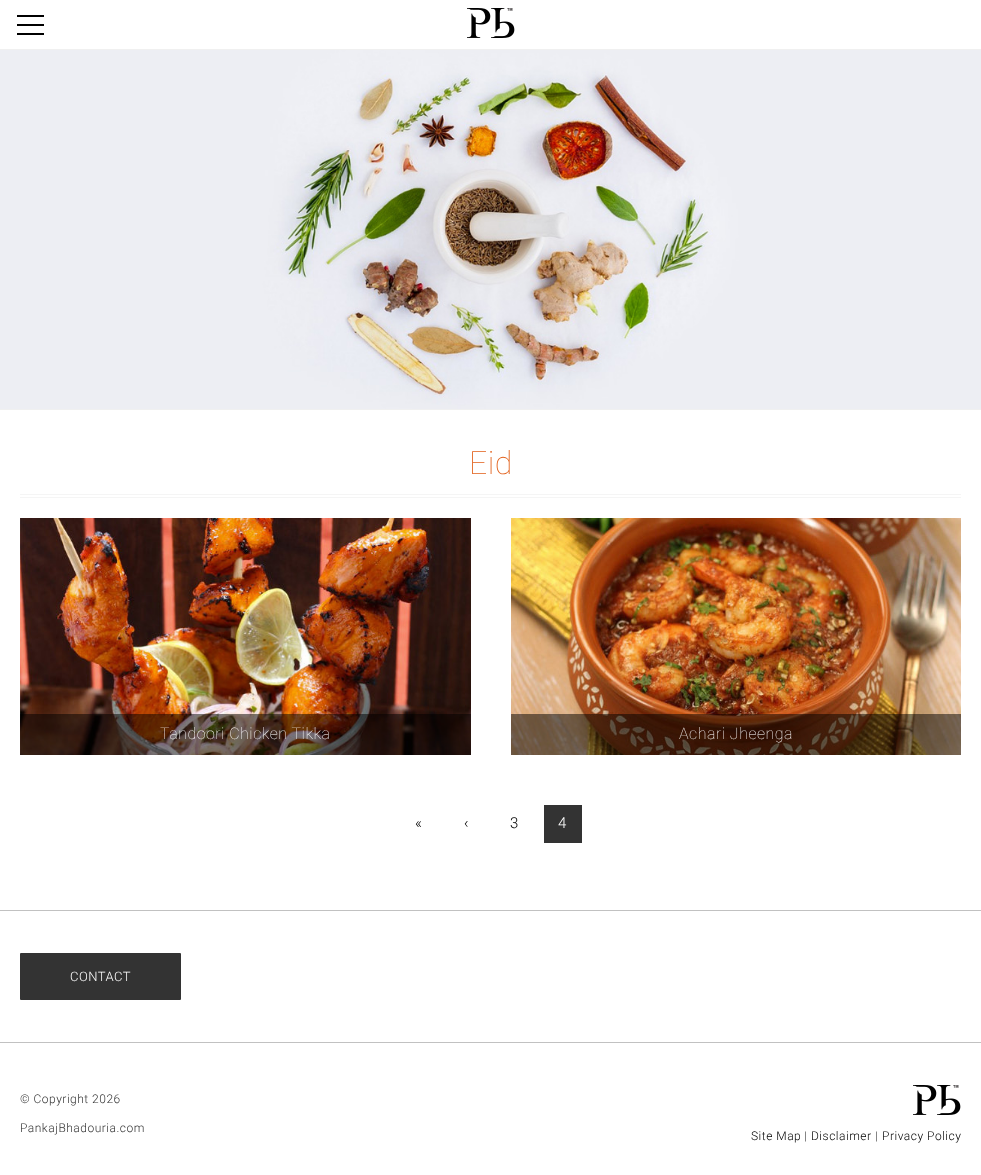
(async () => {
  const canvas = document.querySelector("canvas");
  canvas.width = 981;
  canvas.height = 1175;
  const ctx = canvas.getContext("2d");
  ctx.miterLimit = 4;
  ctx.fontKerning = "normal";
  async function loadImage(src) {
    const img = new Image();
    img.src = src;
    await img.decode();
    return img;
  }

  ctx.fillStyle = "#ffffff";
  ctx.fillRect(0, 0, 981, 1175);
  ctx.fillStyle = "#f0f0f0";
  ctx.fillRect(0, 49, 981, 1);
  ctx.drawImage(await loadImage("img/1.png"), 17, 15, 27, 20);
  ctx.drawImage(await loadImage("img/2.png"), 467, 8, 48, 30);
  ctx.fillRect(0, 409, 981, 1);
  ctx.drawImage(await loadImage("img/3.png"), 0, 50, 981, 359);
  ctx.fillStyle = "#f5f5f5";
  ctx.fillRect(20, 497, 941, 1);
  ctx.fillRect(20, 494, 941, 1);
  ctx.drawImage(await loadImage("img/4.png"), 20, 518, 451, 237);
  ctx.fillStyle = "rgba(0, 0, 0, 0.5)";
  ctx.fillRect(20, 714, 451, 41);
  ctx.drawImage(await loadImage("img/5.png"), 511, 518, 450, 237);
  for (const [x, y, w, h, color] of [
    [511, 714, 450, 41, "rgba(0, 0, 0, 0.5)"],
    [544, 805, 38, 38, "#333333"],
    [0, 910, 981, 1, "#c1c1c1"],
  ]) {
    ctx.fillStyle = color;
    ctx.fillRect(x, y, w, h);
  }
  ctx.fillStyle = "#333333";
  ctx.beginPath();
  ctx.roundRect(20, 953, 161, 47, 1);
  ctx.fill();
  ctx.fillStyle = "#c1c1c1";
  ctx.fillRect(0, 1042, 981, 1);
  ctx.drawImage(await loadImage("img/2.png"), 913, 1085, 48, 30);
  ctx.letterSpacing = "0.5px";
  ctx.font = "100 32px Roboto";
  ctx.fillStyle = "#e15f19";
  ctx.fillText("Eid", 469, 474);
  ctx.font = "100 16px Roboto";
  ctx.fillStyle = "#ffffff";
  ctx.fillText("Tandoori Chicken Tikka", 160, 739);
  ctx.fillText("Achari Jheenga", 679, 739);
  ctx.font = "300 15px Roboto";
  ctx.fillStyle = "#000000";
  for (const [text, x, y] of [
    ["«", 415, 828],
    ["‹", 464, 828],
    ["3", 510, 828],
  ]) {
    ctx.fillText(text, x, y);
  }
  ctx.fillStyle = "#ffffff";
  ctx.fillText("4", 558, 828);
  ctx.font = "300 13px Roboto";
  ctx.fillText("CONTACT", 70, 981);
  ctx.font = "300 12px Roboto";
  ctx.fillStyle = "#333333";
  ctx.fillText("© Copyright 2026", 20, 1103);
  ctx.fillText("PankajBhadouria.com", 20, 1132);
  ctx.fillStyle = "#000000";
  ctx.fillText("Site Map", 751, 1140);
  ctx.fillStyle = "#333333";
  ctx.fillText("|", 804, 1140);
  ctx.fillStyle = "#000000";
  ctx.fillText("Disclaimer", 811, 1140);
  ctx.fillStyle = "#333333";
  ctx.fillText("|", 875, 1140);
  ctx.fillStyle = "#000000";
  ctx.fillText("Privacy Policy", 882, 1140);
})();
